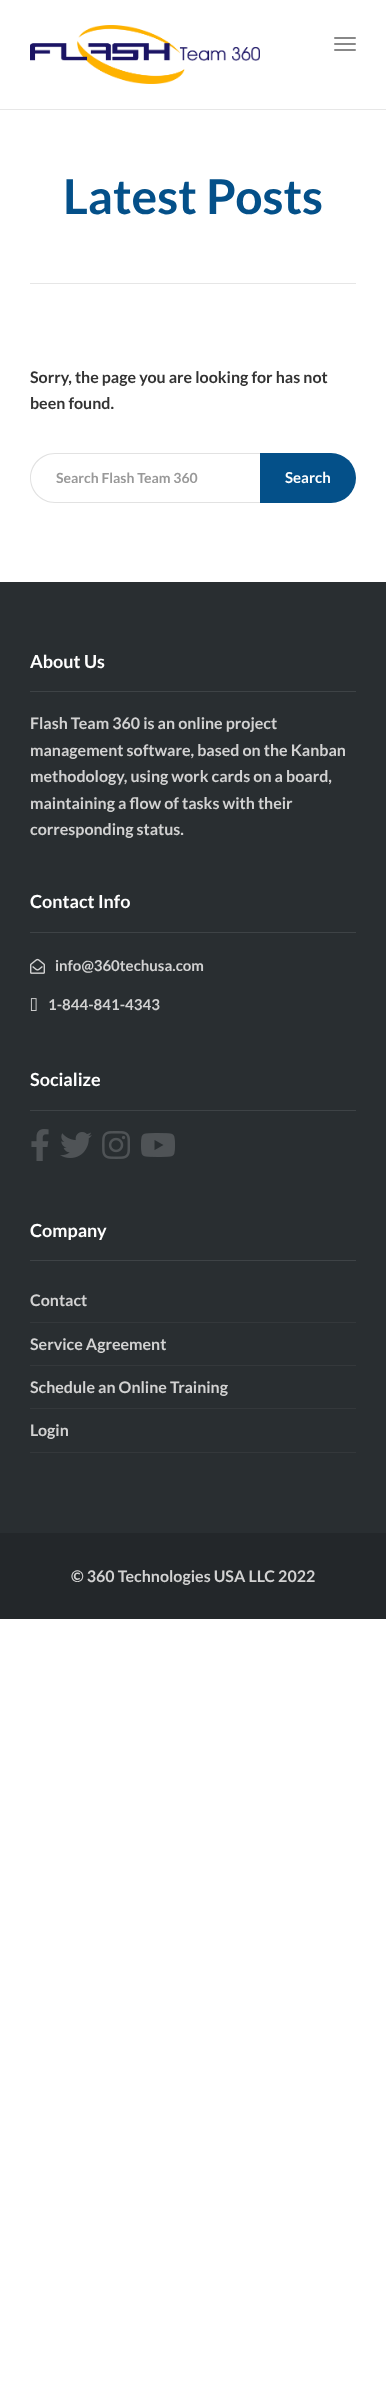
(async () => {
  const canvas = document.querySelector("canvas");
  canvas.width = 386;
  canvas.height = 2384;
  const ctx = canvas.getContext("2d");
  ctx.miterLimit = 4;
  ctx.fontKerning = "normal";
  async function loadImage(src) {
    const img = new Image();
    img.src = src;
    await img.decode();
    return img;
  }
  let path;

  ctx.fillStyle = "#ffffff";
  ctx.fillRect(0, 0, 386, 2384);
  ctx.fillStyle = "#e7e7e7";
  ctx.fillRect(0, 109, 386, 1);
  ctx.drawImage(await loadImage("img/1.png"), 30, 25, 230, 59);
  ctx.fillStyle = "#888888";
  ctx.beginPath();
  ctx.roundRect(334, 37, 22, 2, 1);
  ctx.fill();
  ctx.beginPath();
  ctx.roundRect(334, 43, 22, 2, 1);
  ctx.fill();
  ctx.beginPath();
  ctx.roundRect(334, 49, 22, 2, 1);
  ctx.fill();
  ctx.fillStyle = "#e6e6e6";
  ctx.fillRect(30, 283, 326, 1);
  ctx.fillStyle = "#e2e2e2";
  path = new Path2D("M55 453H260V503H55C41 503 30 492 30 478C30 464 41 453 55 453ZM55 454H260V502H55C42 502 31 491 31 478C31 465 42 454 55 454Z");
  ctx.fill(path, "evenodd");
  ctx.fillStyle = "#045089";
  ctx.beginPath();
  ctx.roundRect(260, 453, 96, 50, [0, 25, 25, 0]);
  ctx.fill();
  for (const [x, y, w, h, color] of [
    [0, 582, 386, 951, "#292e31"],
    [30, 691, 326, 1, "#3e4346"],
    [30, 932, 326, 1, "#3e4346"],
  ]) {
    ctx.fillStyle = color;
    ctx.fillRect(x, y, w, h);
  }
  ctx.drawImage(await loadImage("img/2.png"), 30, 958, 15, 16);
  ctx.drawImage(await loadImage("img/3.png"), 30, 998, 7, 13);
  ctx.fillRect(30, 1110, 326, 1);
  ctx.drawImage(await loadImage("img/4.png"), 31, 1129, 18, 32);
  ctx.drawImage(await loadImage("img/5.png"), 60, 1132, 32, 26);
  ctx.drawImage(await loadImage("img/6.png"), 102, 1131, 28, 28);
  ctx.drawImage(await loadImage("img/7.png"), 141, 1133, 34, 24);
  for (const [x, y, w, h, color] of [
    [30, 1260, 326, 1, "#3e4346"],
    [30, 1322, 326, 1, "#34383b"],
    [30, 1365, 326, 1, "#34383b"],
    [30, 1408, 326, 1, "#34383b"],
    [30, 1452, 326, 1, "#34383b"],
    [0, 1533, 386, 86, "#23272a"],
  ]) {
    ctx.fillStyle = color;
    ctx.fillRect(x, y, w, h);
  }
  ctx.font = "bold 48px Lato";
  ctx.fillStyle = "#045089";
  ctx.fillText("Latest Posts", 63, 214);
  ctx.font = "bold 16px Lato";
  ctx.fillStyle = "#333333";
  ctx.fillText("Sorry, the page you are looking for has not", 30, 383);
  ctx.fillText("been found.", 30, 409);
  ctx.font = "bold 14px Lato";
  ctx.fillStyle = "#999999";
  ctx.fillText("Search Flash Team 360", 56, 483);
  ctx.font = "bold 15px Lato";
  ctx.fillStyle = "#ffffff";
  ctx.fillText("Search", 285, 483);
  ctx.font = "bold 18px Lato";
  ctx.fillText("About Us", 30, 668);
  ctx.font = "bold 16px Lato";
  ctx.fillStyle = "#d2d2d2";
  for (const [text, x, y] of [
    ["Flash Team 360 is an online project", 30, 729],
    ["management software, based on the Kanban", 30, 756],
    ["methodology, using work cards on a board,", 30, 782],
    ["maintaining a flow of tasks with their", 30, 809],
    ["corresponding status.", 30, 835],
  ]) {
    ctx.fillText(text, x, y);
  }
  ctx.font = "bold 18px Lato";
  ctx.fillStyle = "#ffffff";
  ctx.fillText("Contact Info", 30, 908);
  ctx.font = "bold 15px Lato";
  ctx.fillStyle = "#d2d2d2";
  ctx.fillText("info@360techusa.com", 55, 971);
  ctx.fillText("1-844-841-4343", 48, 1010);
  ctx.font = "bold 18px Lato";
  ctx.fillStyle = "#ffffff";
  ctx.fillText("Socialize", 30, 1086);
  ctx.fillText("Company", 30, 1237);
  ctx.font = "bold 16px Lato";
  ctx.fillStyle = "#d2d2d2";
  for (const [text, x, y] of [
    ["Contact", 30, 1306],
    ["Service Agreement", 30, 1350],
    ["Schedule an Online Training", 30, 1393],
    ["Login", 30, 1436],
    ["© 360 Technologies USA LLC 2022", 71, 1582],
  ]) {
    ctx.fillText(text, x, y);
  }
})();
